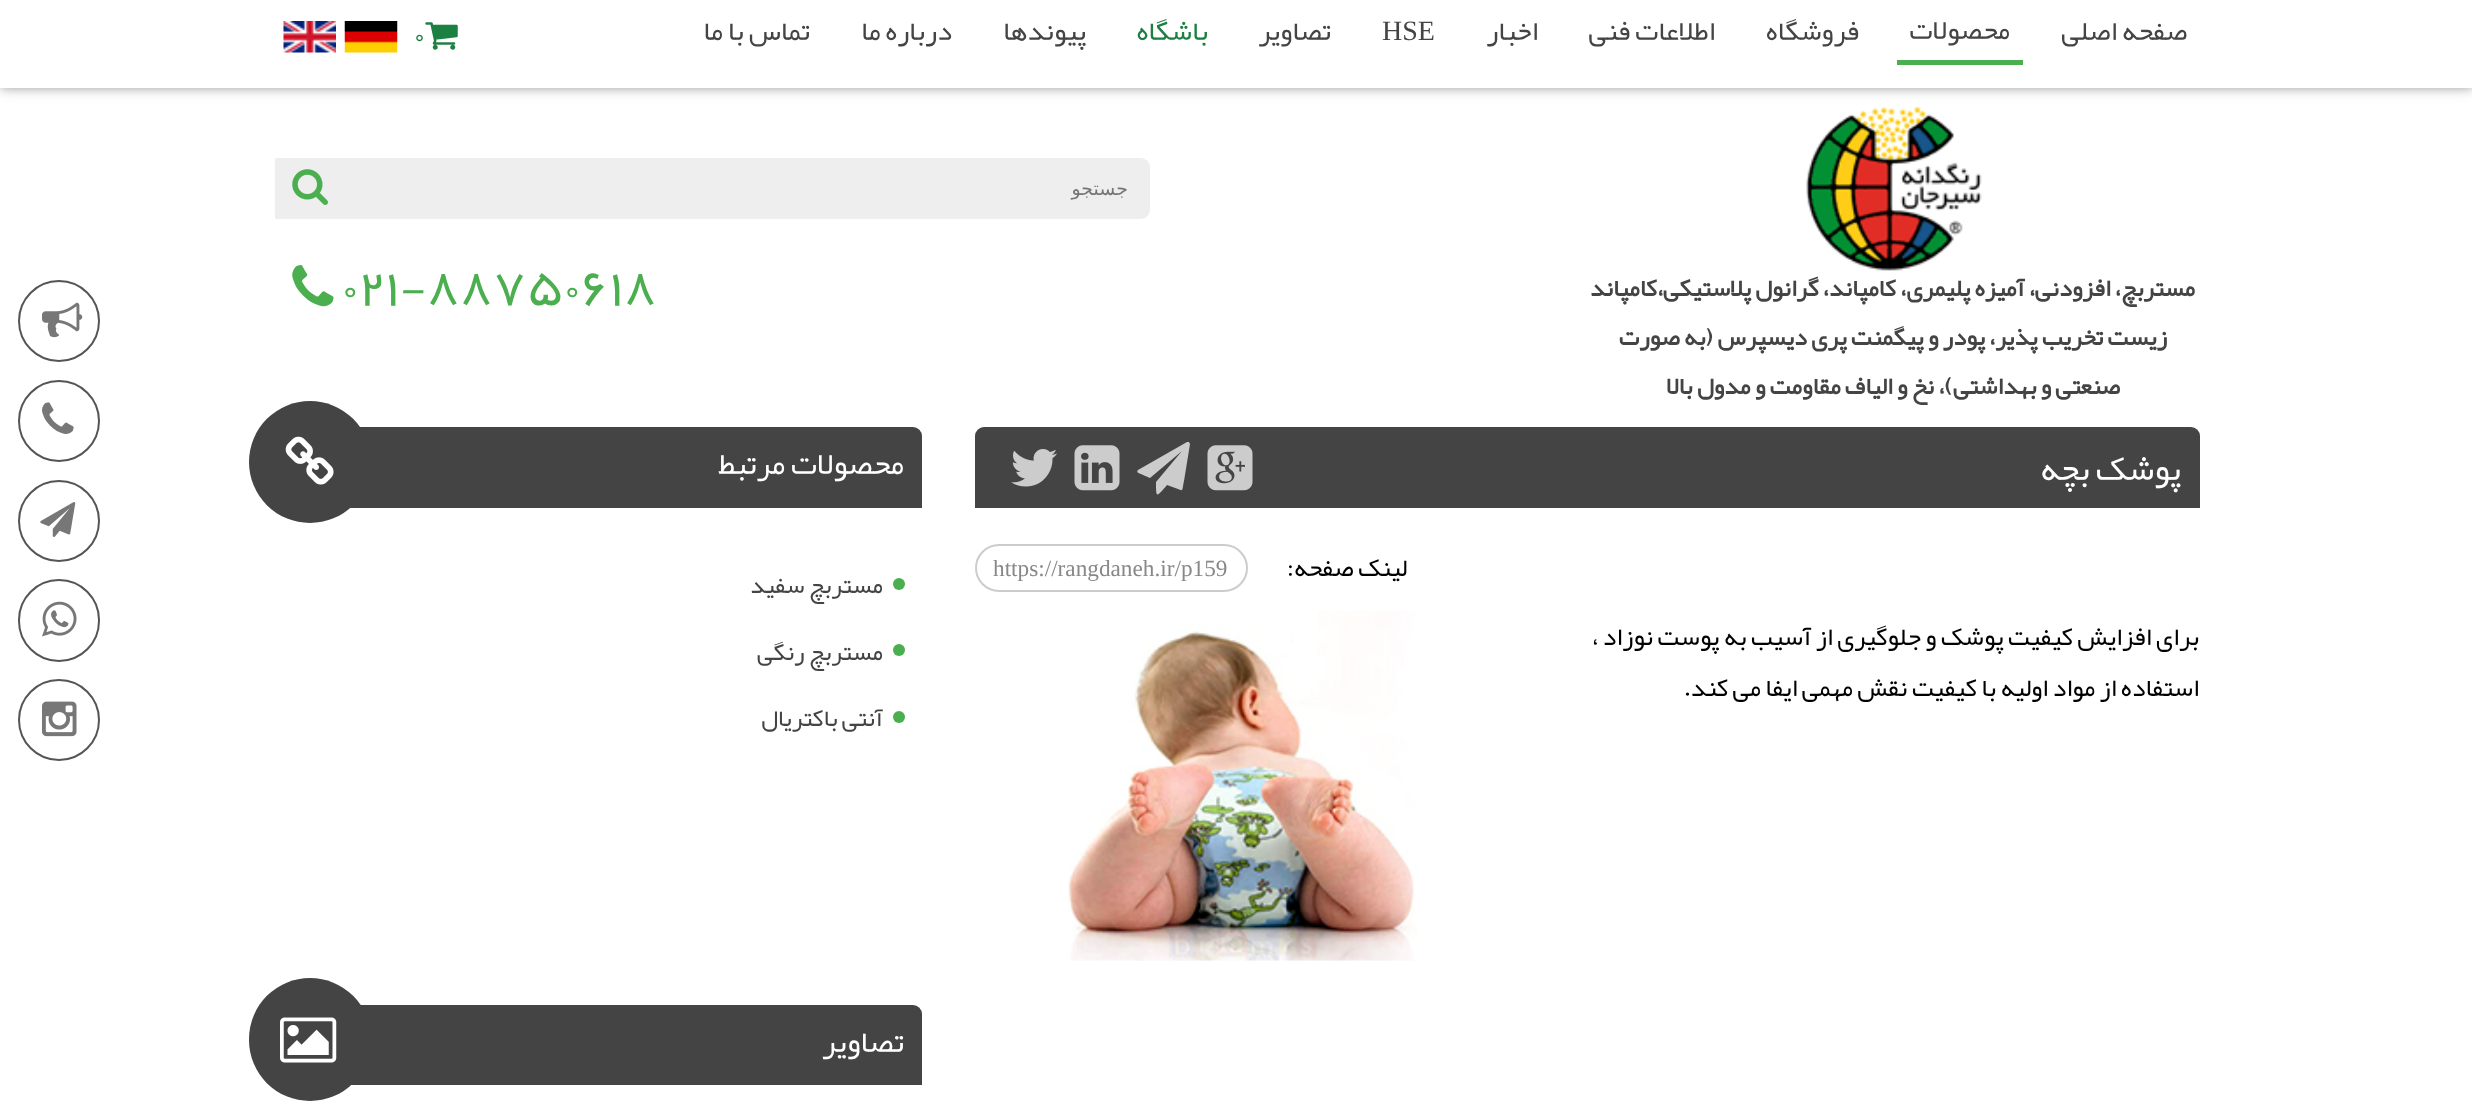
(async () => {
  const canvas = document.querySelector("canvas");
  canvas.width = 2472;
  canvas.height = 1112;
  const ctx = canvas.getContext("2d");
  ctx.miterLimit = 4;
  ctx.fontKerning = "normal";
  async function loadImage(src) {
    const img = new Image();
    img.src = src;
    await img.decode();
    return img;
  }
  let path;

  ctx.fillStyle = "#ffffff";
  ctx.fillRect(0, 0, 2472, 1112);
  ctx.save();
  path = new Path2D("M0 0H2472V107H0ZM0 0H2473V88H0Z");
  ctx.clip(path, "evenodd");
  ctx.fillStyle = "#999999";
  ctx.filter = "blur(6px)";
  ctx.beginPath();
  ctx.rect(0, 0, 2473, 88);
  ctx.fill();
  ctx.filter = "none";
  ctx.restore();
  ctx.fillStyle = "#4bae4f";
  ctx.fillRect(1897, 60, 126, 5);
  ctx.drawImage(await loadImage("img/1.png"), 425, 22, 33, 28);
  ctx.drawImage(await loadImage("img/2.png"), 344, 21, 54, 32);
  ctx.drawImage(await loadImage("img/3.png"), 283, 21, 53, 32);
  ctx.save();
  ctx.beginPath();
  ctx.rect(275, 88, 1925, 339);
  ctx.clip();
  ctx.fillStyle = "#eeeeee";
  ctx.beginPath();
  ctx.roundRect(268, 158, 882, 61, 9);
  ctx.fill();
  ctx.restore();
  ctx.drawImage(await loadImage("img/4.png"), 292, 169, 36, 36);
  ctx.drawImage(await loadImage("img/5.png"), 292, 265, 42, 42);
  ctx.drawImage(await loadImage("img/6.png"), 1806, 106, 176, 165);
  ctx.beginPath();
  ctx.arc(59, 321, 40, 0, Math.PI * 2);
  ctx.strokeStyle = "#555555";
  ctx.lineWidth = 2;
  ctx.stroke();
  ctx.drawImage(await loadImage("img/7.png"), 42, 302, 41, 36);
  ctx.beginPath();
  ctx.arc(59, 421, 40, 0, Math.PI * 2);
  ctx.stroke();
  ctx.drawImage(await loadImage("img/8.png"), 42, 402, 32, 32);
  ctx.beginPath();
  ctx.arc(59, 521, 40, 0, Math.PI * 2);
  ctx.stroke();
  ctx.drawImage(await loadImage("img/9.png"), 40, 502, 36, 35);
  ctx.beginPath();
  ctx.roundRect(19, 580, 80, 81, 40);
  ctx.stroke();
  ctx.drawImage(await loadImage("img/10.png"), 42, 601, 35, 36);
  ctx.beginPath();
  ctx.arc(59, 720, 40, 0, Math.PI * 2);
  ctx.stroke();
  ctx.drawImage(await loadImage("img/11.png"), 42, 701, 35, 36);
  ctx.fillStyle = "#444444";
  ctx.beginPath();
  ctx.roundRect(975, 427, 1225, 81, [9, 9, 0, 0]);
  ctx.fill();
  ctx.drawImage(await loadImage("img/12.png"), 1207, 445, 46, 46);
  ctx.fillStyle = "#cccccc";
  path = new Path2D("M1189 442L1190 444L1184 481C1182 489 1184 492 1178 489L1167 485C1156 498 1156 498 1156 482L1182 451L1150 478L1143 475C1142 474 1135 473 1138 470L1187 442Z");
  ctx.fill(path);
  ctx.drawImage(await loadImage("img/13.png"), 1074, 445, 46, 46);
  ctx.drawImage(await loadImage("img/14.png"), 1011, 449, 46, 38);
  ctx.beginPath();
  ctx.roundRect(976, 545, 271, 46, 23);
  ctx.strokeStyle = "#cccccc";
  ctx.stroke();
  ctx.drawImage(await loadImage("img/15.png"), 1068, 611, 349, 350);
  ctx.fillStyle = "#444444";
  ctx.beginPath();
  ctx.roundRect(275, 427, 647, 81, [9, 9, 0, 0]);
  ctx.fill();
  ctx.beginPath();
  ctx.arc(310, 462, 61, 0, Math.PI * 2);
  ctx.fill();
  ctx.drawImage(await loadImage("img/16.png"), 285, 436, 49, 49);
  ctx.fillStyle = "#4bae4f";
  ctx.beginPath();
  ctx.arc(899, 584, 6, 0, Math.PI * 2);
  ctx.fill();
  ctx.beginPath();
  ctx.arc(899, 650, 6, 0, Math.PI * 2);
  ctx.fill();
  ctx.beginPath();
  ctx.arc(899, 717, 6, 0, Math.PI * 2);
  ctx.fill();
  ctx.fillStyle = "#444444";
  ctx.beginPath();
  ctx.roundRect(275, 1005, 647, 80, [9, 9, 0, 0]);
  ctx.fill();
  ctx.beginPath();
  ctx.roundRect(249, 978, 122, 123, 61);
  ctx.fill();
  ctx.drawImage(await loadImage("img/17.png"), 280, 1017, 57, 46);
  ctx.direction = "rtl";
  ctx.font = "28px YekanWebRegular";
  for (const [text, x, y] of [
    ["صفحه اصلی", 2187, 40],
    ["محصولات", 2010, 39],
    ["فروشگاه", 1859, 40],
    ["اطلاعات فنی", 1715, 40],
    ["اخبار", 1538, 40],
  ]) {
    ctx.fillText(text, x, y);
  }
  ctx.direction = "ltr";
  ctx.font = "28px Liberation Serif";
  ctx.fillText("HSE", 1382, 40);
  ctx.direction = "rtl";
  ctx.font = "28px YekanWebRegular";
  ctx.fillText("تصاویر", 1331, 40);
  ctx.fillStyle = "#1b8041";
  ctx.fillText("باشگاه", 1208, 40);
  ctx.fillStyle = "#444444";
  for (const [text, x, y] of [
    ["پیوندها", 1086, 40],
    ["درباره ما", 952, 40],
    ["تماس با ما", 810, 40],
  ]) {
    ctx.fillText(text, x, y);
  }
  ctx.direction = "ltr";
  ctx.font = "35px YekanWebRegular";
  ctx.fillStyle = "#1b8041";
  ctx.fillText("0", 414, 47);
  ctx.direction = "rtl";
  ctx.font = "19px DejaVu Sans";
  ctx.fillStyle = "#757575";
  ctx.fillText("جستجو", 1128, 195);
  ctx.direction = "ltr";
  ctx.font = "52.5px YekanWebRegular";
  ctx.fillStyle = "#4bae4f";
  ctx.fillText("021-88750618", 342, 306);
  ctx.direction = "rtl";
  ctx.font = "bold 24.5px YekanWebRegular";
  ctx.fillStyle = "#444444";
  for (const [text, x, y] of [
    ["مستربچ، افزودنى، آمیزه پلیمرى، کامپاند، گرانول پلاستیکى،کامپاند", 2195, 296],
    ["زیست تخریب پذیر، پودر و پیگمنت پرى دیسپرس (به صورت", 2167, 345],
    ["صنعتى و بهداشتى)، نخ و الیاف مقاومت و مدول بالا", 2120, 394],
  ]) {
    ctx.fillText(text, x, y);
  }
  ctx.font = "35px YekanWebRegular";
  ctx.fillStyle = "#ffffff";
  ctx.fillText("پوشک بچه", 2181, 480);
  ctx.font = "25.7px YekanWebRegular";
  ctx.fillStyle = "#000000";
  ctx.fillText("لینک صفحه:", 1407, 576);
  ctx.direction = "ltr";
  ctx.font = "23.25px Liberation Serif";
  ctx.fillStyle = "#888888";
  ctx.fillText("https://rangdaneh.ir/p159", 993, 576);
  ctx.direction = "rtl";
  ctx.font = "25.7px YekanWebRegular";
  ctx.fillStyle = "#000000";
  ctx.fillText("برای افزایش کیفیت پوشک و جلوگیری از آسیب به پوست نوزاد ،", 2199, 645);
  ctx.fillText("استفاده از مواد اولیه با کیفیت نقش مهمی ایفا می کند.", 2199, 696);
  ctx.font = "31.5px YekanWebRegular";
  ctx.fillStyle = "#ffffff";
  ctx.fillText("محصولات مرتبط", 904, 474);
  ctx.font = "24.5px YekanWebRegular";
  ctx.fillStyle = "#444444";
  for (const [text, x, y] of [
    ["مستربچ سفید", 883, 593],
    ["مستربچ رنگی", 883, 660],
    ["آنتی باکتریال", 883, 726],
  ]) {
    ctx.fillText(text, x, y);
  }
  ctx.font = "31.5px YekanWebRegular";
  ctx.fillStyle = "#ffffff";
  ctx.fillText("تصاویر", 904, 1052);
})();
